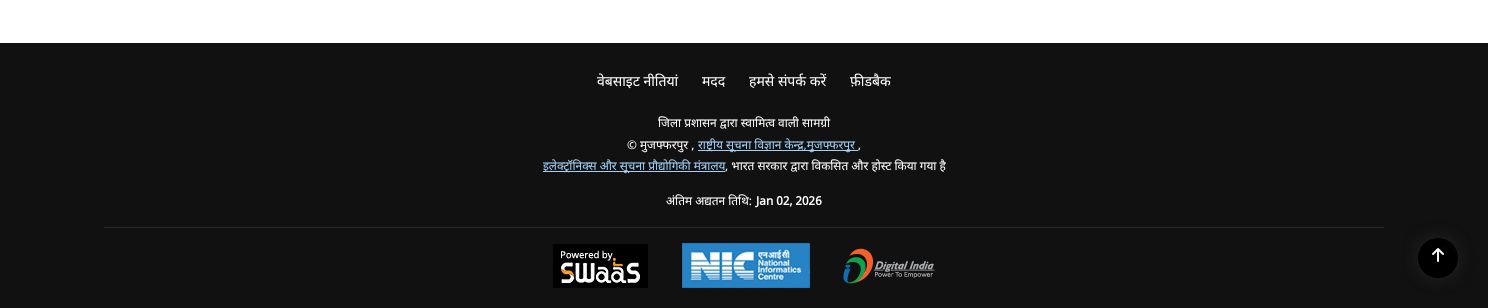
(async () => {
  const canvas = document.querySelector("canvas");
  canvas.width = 1488;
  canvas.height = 308;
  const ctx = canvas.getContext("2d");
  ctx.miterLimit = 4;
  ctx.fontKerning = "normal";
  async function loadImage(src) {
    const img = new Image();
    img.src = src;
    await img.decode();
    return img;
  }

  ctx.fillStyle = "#ffffff";
  ctx.fillRect(0, 0, 1488, 308);
  for (const [x, y, w, h, color] of [
    [0, 43, 1488, 265, "#111111"],
    [698, 150, 160, 1, "#a3d2f9"],
    [543, 171, 182, 1, "#a3d2f9"],
    [104, 227, 1280, 1, "#292929"],
  ]) {
    ctx.fillStyle = color;
    ctx.fillRect(x, y, w, h);
  }
  ctx.drawImage(await loadImage("img/1.png"), 553, 244, 95, 44);
  ctx.drawImage(await loadImage("img/2.png"), 682, 243, 128, 45);
  ctx.drawImage(await loadImage("img/3.png"), 843, 248, 92, 36);
  ctx.fillStyle = "#3c3c3c";
  ctx.filter = "blur(9.5px)";
  ctx.beginPath();
  ctx.roundRect(1423, 243, 30, 30, 15);
  ctx.fill();
  ctx.filter = "none";
  ctx.fillStyle = "#000000";
  ctx.beginPath();
  ctx.arc(1438, 258, 20, 0, Math.PI * 2);
  ctx.fill();
  ctx.drawImage(await loadImage("img/4.png"), 1432, 248, 12, 14);
  ctx.font = "14px Noto Sans";
  ctx.fillStyle = "#ffffff";
  for (const [text, x, y] of [
    ["वेबसाइट नीतियां", 597, 86],
    ["मदद", 702, 86],
    ["हमसे संपर्क करें", 749, 86],
    ["फ़ीडबैक", 850, 86],
  ]) {
    ctx.fillText(text, x, y);
  }
  ctx.font = "11.9px Noto Sans";
  ctx.fillText("जिला प्रशासन द्वारा स्वामित्व वाली सामग्री", 658, 127);
  ctx.fillText("© मुजफ्फरपुर ,", 627, 149);
  ctx.fillStyle = "#a3d2f9";
  ctx.fillText("राष्ट्रीय सूचना विज्ञान केन्द्र,मुजफ्फरपुर", 698, 149);
  ctx.font = "11.9px 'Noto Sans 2'";
  ctx.fillStyle = "#ffffff";
  ctx.fillText(",", 858, 149);
  ctx.font = "11.9px Noto Sans";
  ctx.fillStyle = "#a3d2f9";
  ctx.fillText("इलेक्ट्रॉनिक्स और सूचना प्रौद्योगिकी मंत्रालय", 543, 170);
  ctx.fillStyle = "#ffffff";
  ctx.fillText(", भारत सरकार द्वारा विकसित और होस्ट किया गया है", 725, 170);
  ctx.fillText("अंतिम अद्यतन तिथि:", 666, 205);
  ctx.font = "bold 11.9px Noto Sans";
  ctx.fillText("Jan 02, 2026", 756, 205);
})();
